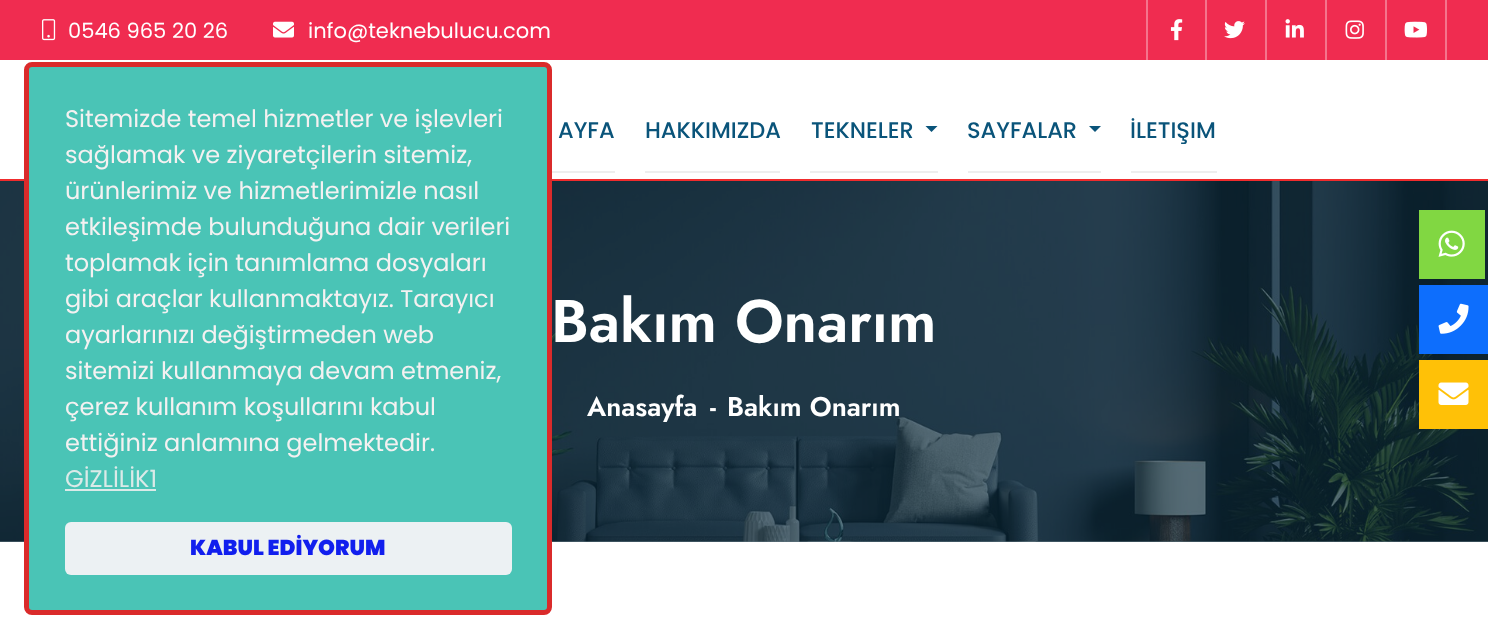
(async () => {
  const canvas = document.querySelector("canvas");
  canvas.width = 1488;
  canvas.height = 639;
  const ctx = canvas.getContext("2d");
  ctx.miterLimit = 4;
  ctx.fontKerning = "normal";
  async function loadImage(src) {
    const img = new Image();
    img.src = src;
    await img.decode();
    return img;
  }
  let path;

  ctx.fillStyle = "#ffffff";
  ctx.fillRect(0, 0, 1488, 639);
  ctx.fillStyle = "#607681";
  ctx.fillRect(0, 541, 1488, 1);
  ctx.fillStyle = "#f02c50";
  ctx.fillRect(0, 0, 1488, 60);
  ctx.drawImage(await loadImage("img/1.png"), 42, 19, 14, 22);
  ctx.drawImage(await loadImage("img/2.png"), 273, 21, 21, 17);
  ctx.fillStyle = "#f5748c";
  ctx.fillRect(1205, 0, 2, 60);
  ctx.fillRect(1146, 0, 2, 60);
  ctx.drawImage(await loadImage("img/3.png"), 1170, 19, 13, 22);
  ctx.fillRect(1265, 0, 2, 60);
  ctx.drawImage(await loadImage("img/4.png"), 1224, 21, 21, 18);
  ctx.fillRect(1325, 0, 2, 60);
  ctx.drawImage(await loadImage("img/5.png"), 1285, 19, 19, 19);
  ctx.fillRect(1385, 0, 2, 60);
  ctx.drawImage(await loadImage("img/6.png"), 1345, 20, 19, 19);
  ctx.fillRect(1445, 0, 2, 60);
  ctx.drawImage(await loadImage("img/7.png"), 1404, 21, 23, 17);
  ctx.fillStyle = "#f02c2d";
  ctx.fillRect(0, 179, 1488, 2);
  ctx.drawImage(await loadImage("img/8.png"), 0, 181, 1488, 361);
  ctx.fillStyle = "#4ac4b6";
  ctx.beginPath();
  ctx.roundRect(26.5, 64.5, 523, 548, 5.5);
  ctx.fill();
  ctx.strokeStyle = "#da2b2b";
  ctx.lineWidth = 5;
  ctx.stroke();
  ctx.fillStyle = "#dbeae8";
  ctx.fillRect(65, 489, 91, 2);
  ctx.fillStyle = "#ecf1f3";
  ctx.beginPath();
  ctx.roundRect(65, 522, 447, 53, 6);
  ctx.fill();
  for (const [x, y, w, h, color] of [
    [552, 171, 63, 2, "#eeeeee"],
    [645, 171, 135, 2, "#eeeeee"],
    [810, 171, 128, 2, "#eeeeee"],
  ]) {
    ctx.fillStyle = color;
    ctx.fillRect(x, y, w, h);
  }
  ctx.fillStyle = "#0a547a";
  path = new Path2D("M925.5 126H937.5L931.5 132Z");
  ctx.fill(path);
  ctx.fillStyle = "#eeeeee";
  ctx.fillRect(968, 171, 133, 2);
  ctx.fillStyle = "#0a547a";
  path = new Path2D("M1089 126H1101L1095 132Z");
  ctx.fill(path);
  ctx.fillStyle = "#eeeeee";
  ctx.fillRect(1131, 171, 86, 2);
  ctx.fillStyle = "#81d742";
  ctx.fillRect(1419, 210, 66, 69);
  ctx.drawImage(await loadImage("img/9.png"), 1438, 230, 27, 27);
  ctx.fillStyle = "#0d6efd";
  ctx.fillRect(1419, 285, 69, 69);
  ctx.drawImage(await loadImage("img/10.png"), 1438, 303, 31, 31);
  ctx.fillStyle = "#ffc107";
  ctx.fillRect(1419, 360, 69, 69);
  ctx.drawImage(await loadImage("img/11.png"), 1438, 382, 31, 23);
  ctx.font = "21px Poppins";
  ctx.fillStyle = "#ffffff";
  ctx.fillText("0546 965 20 26", 68, 38);
  ctx.fillText("info@teknebulucu.com", 308, 38);
  ctx.font = "24px Poppins";
  ctx.fillStyle = "#f4f1f1";
  for (const [text, x, y] of [
    ["Sitemizde temel hizmetler ve işlevleri", 65, 127],
    ["sağlamak ve ziyaretçilerin sitemiz,", 65, 163],
    ["ürünlerimiz ve hizmetlerimizle nasıl", 65, 199],
    ["etkileşimde bulunduğuna dair verileri", 65, 235],
    ["toplamak için tanımlama dosyaları", 65, 271],
    ["gibi araçlar kullanmaktayız. Tarayıcı", 65, 307],
    ["ayarlarınızı değiştirmeden web", 65, 343],
    ["sitemizi kullanmaya devam etmeniz,", 65, 379],
    ["çerez kullanım koşullarını kabul", 65, 415],
    ["ettiğiniz anlamına gelmektedir.", 65, 451],
  ]) {
    ctx.fillText(text, x, y);
  }
  ctx.fillStyle = "#dbeae8";
  ctx.fillText("GİZLİLİK1", 65, 487);
  ctx.font = "900 21.5px Poppins";
  ctx.fillStyle = "#111fee";
  ctx.fillText("KABUL EDİYORUM", 190, 555);
  ctx.font = "500 22.5px Poppins";
  ctx.fillStyle = "#0a547a";
  for (const [text, x, y] of [
    ["AYFA", 558, 138],
    ["HAKKIMIZDA", 645, 138],
    ["TEKNELER", 811, 138],
    ["SAYFALAR", 967, 138],
    ["İLETIŞIM", 1130, 138],
  ]) {
    ctx.fillText(text, x, y);
  }
  ctx.font = "600 60px Jost";
  ctx.fillStyle = "#ffffff";
  ctx.fillText("Bakım Onarım", 551, 342);
  ctx.font = "600 27px Jost";
  for (const [text, x, y] of [
    ["Anasayfa", 587, 416],
    ["-", 710, 416],
    ["Bakım Onarım", 727, 416],
  ]) {
    ctx.fillText(text, x, y);
  }
})();
